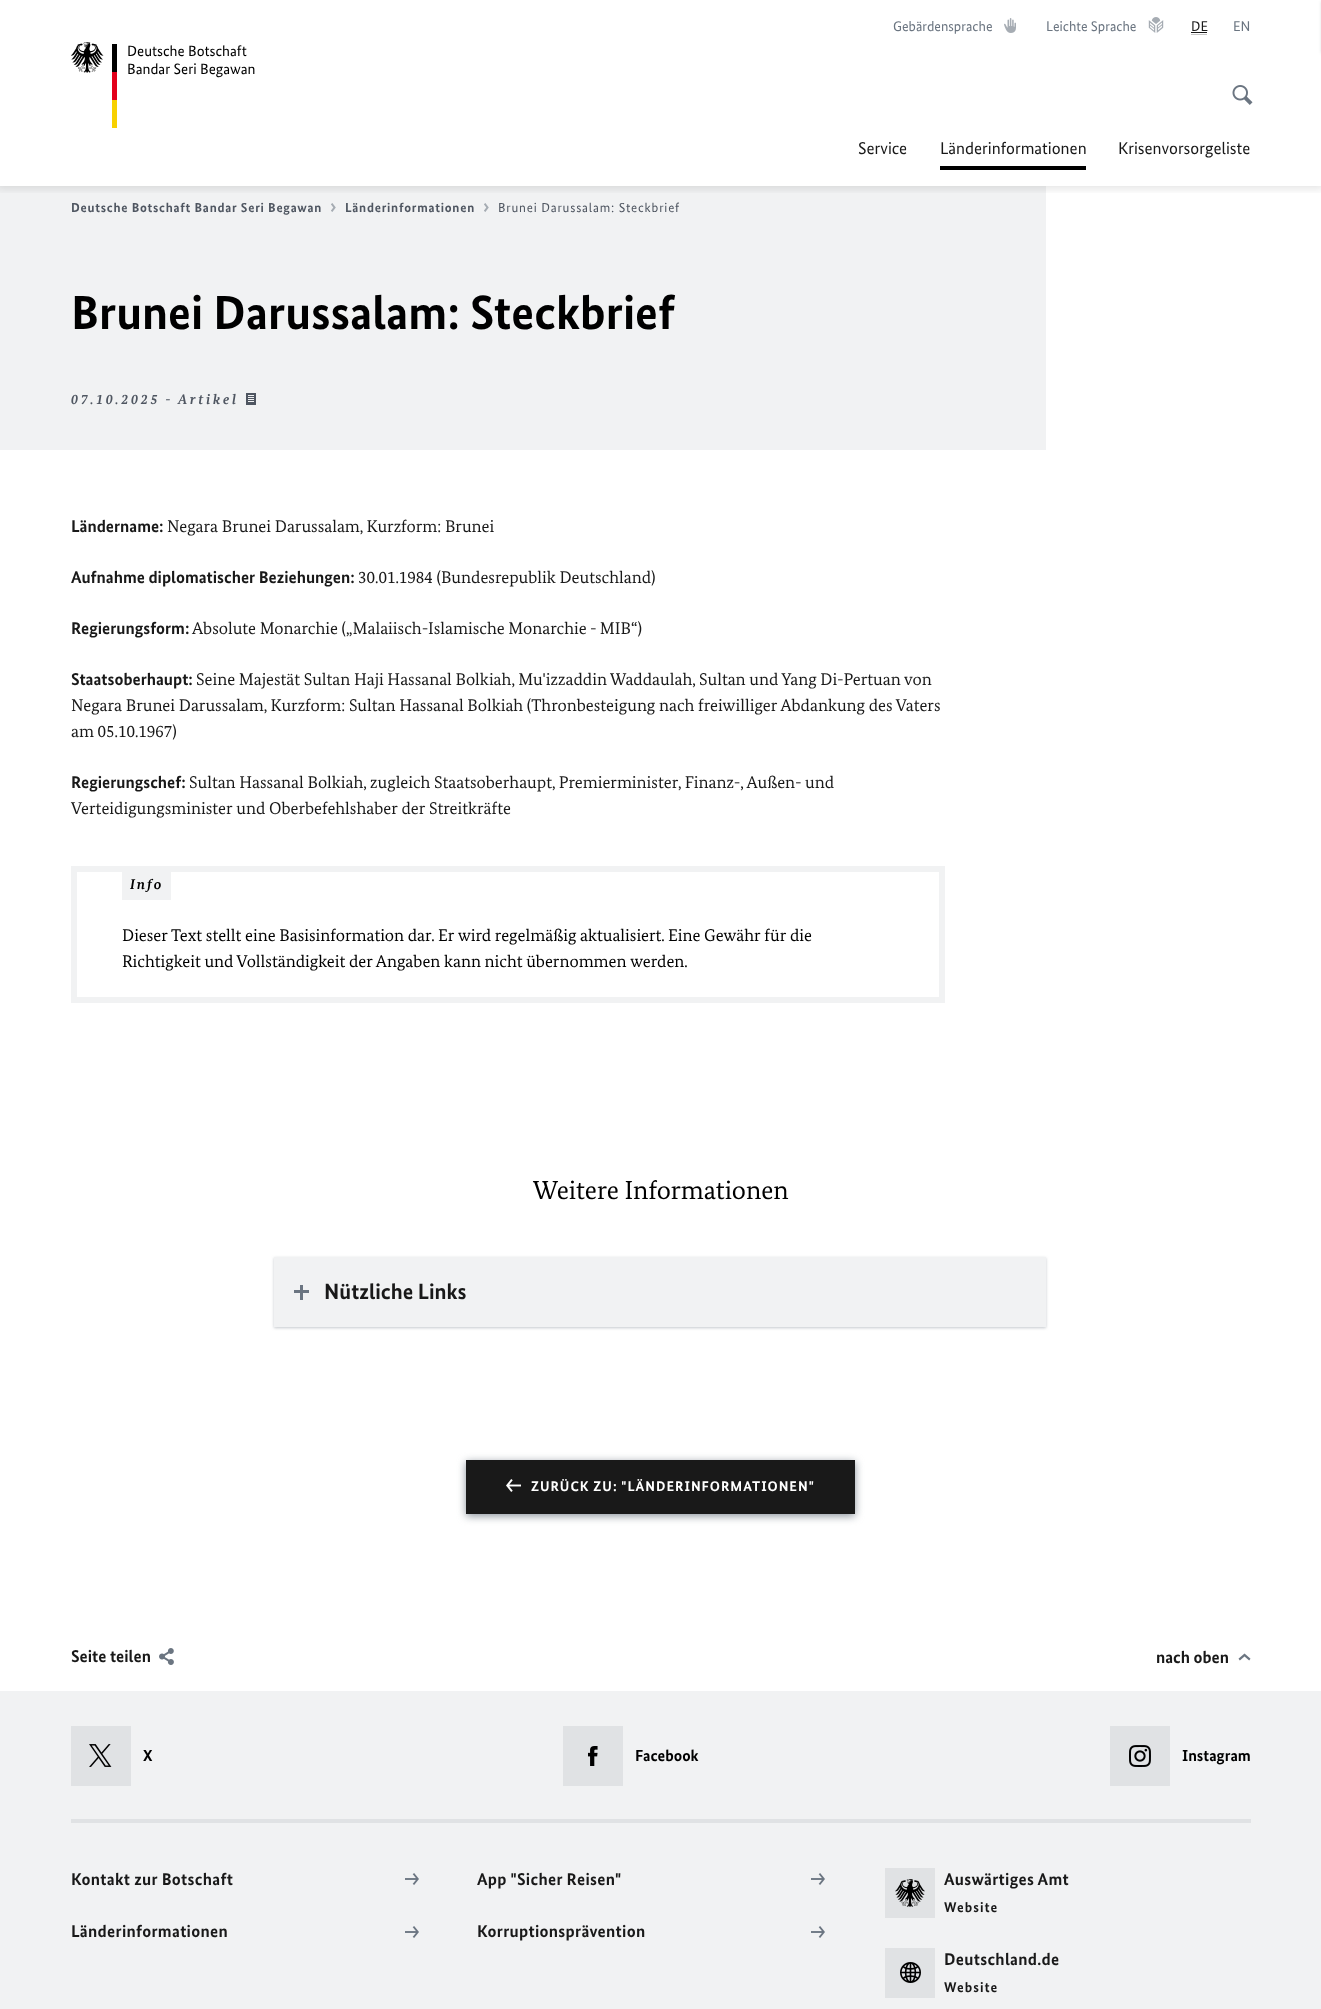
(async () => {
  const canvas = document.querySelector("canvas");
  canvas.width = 1321;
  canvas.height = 2009;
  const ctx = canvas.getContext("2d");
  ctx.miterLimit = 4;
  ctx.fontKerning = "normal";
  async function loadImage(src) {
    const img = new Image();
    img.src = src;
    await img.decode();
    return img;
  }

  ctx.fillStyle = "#ffffff";
  ctx.fillRect(0, 0, 1321, 2009);
  ctx.fillStyle = "#f1f2f3";
  ctx.fillRect(0, 186, 1046, 264);
  ctx.save();
  ctx.beginPath();
  ctx.rect(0, 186, 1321, 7);
  ctx.clip();
  ctx.fillStyle = "rgba(0, 0, 0, 0.1)";
  ctx.filter = "blur(4.5px)";
  ctx.beginPath();
  ctx.rect(-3, -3, 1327, 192);
  ctx.fill();
  ctx.filter = "none";
  ctx.restore();
  ctx.drawImage(await loadImage("img/1.png"), 71, 42, 46, 86);
  ctx.drawImage(await loadImage("img/2.png"), 1004, 18, 12, 15);
  ctx.drawImage(await loadImage("img/3.png"), 1148, 17, 16, 16);
  ctx.fillStyle = "#191919";
  ctx.fillRect(1191, 32, 16, 1);
  ctx.fillStyle = "#c6c6c6";
  ctx.fillRect(1191, 34, 16, 1);
  ctx.drawImage(await loadImage("img/4.png"), 1232, 85, 21, 20);
  ctx.fillStyle = "#000000";
  ctx.fillRect(940, 166, 146, 4);
  ctx.fillStyle = "#e0e2e4";
  ctx.filter = "blur(1.5px)";
  ctx.beginPath();
  ctx.rect(1321, 1, 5, 52);
  ctx.fill();
  ctx.filter = "none";
  ctx.drawImage(await loadImage("img/5.png"), 331, 203, 5, 9);
  ctx.drawImage(await loadImage("img/5.png"), 484, 203, 5, 9);
  ctx.drawImage(await loadImage("img/6.png"), 246, 393, 10, 12);
  ctx.strokeStyle = "#f1f2f3";
  ctx.lineWidth = 6;
  ctx.strokeRect(74, 869, 868, 131);
  ctx.fillStyle = "#f1f2f3";
  ctx.fillRect(122, 872, 49, 28);
  ctx.fillStyle = "rgba(137, 145, 154, 0.5)";
  ctx.filter = "blur(1.5px)";
  ctx.beginPath();
  ctx.rect(274, 1258, 772, 70);
  ctx.fill();
  ctx.filter = "none";
  for (const [x, y, w, h, color] of [
    [274, 1257, 772, 70, "#f1f2f3"],
    [294, 1290, 15, 3, "#6b7581"],
    [300, 1285, 3, 15, "#6b7581"],
  ]) {
    ctx.fillStyle = color;
    ctx.fillRect(x, y, w, h);
  }
  ctx.fillStyle = "#89919a";
  ctx.filter = "blur(4px)";
  ctx.beginPath();
  ctx.rect(466, 1462, 389, 54);
  ctx.fill();
  ctx.filter = "none";
  ctx.fillStyle = "#191919";
  ctx.fillRect(466, 1460, 389, 54);
  ctx.drawImage(await loadImage("img/7.png"), 506, 1479, 15, 13);
  ctx.drawImage(await loadImage("img/8.png"), 159, 1648, 15, 17);
  ctx.drawImage(await loadImage("img/9.png"), 1238, 1653, 13, 8);
  ctx.fillStyle = "#f1f2f3";
  ctx.fillRect(0, 1691, 1321, 318);
  ctx.fillStyle = "#e0e2e4";
  ctx.fillRect(71, 1726, 60, 60);
  ctx.drawImage(await loadImage("img/10.png"), 89, 1744, 23, 23);
  ctx.fillRect(563, 1726, 60, 60);
  ctx.drawImage(await loadImage("img/11.png"), 588, 1746, 10, 20);
  ctx.fillRect(1110, 1726, 60, 60);
  ctx.drawImage(await loadImage("img/12.png"), 1129, 1745, 22, 22);
  ctx.fillRect(71, 1819, 1180, 4);
  ctx.drawImage(await loadImage("img/13.png"), 405, 1873, 14, 12);
  ctx.drawImage(await loadImage("img/13.png"), 405, 1926, 14, 12);
  ctx.drawImage(await loadImage("img/13.png"), 811, 1873, 14, 12);
  ctx.drawImage(await loadImage("img/13.png"), 811, 1926, 14, 12);
  ctx.fillRect(885, 1868, 50, 50);
  ctx.drawImage(await loadImage("img/14.png"), 895, 1879, 30, 28);
  ctx.fillRect(885, 1948, 50, 50);
  ctx.drawImage(await loadImage("img/15.png"), 900, 1962, 21, 21);
  ctx.font = "15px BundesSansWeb";
  ctx.fillStyle = "#000000";
  ctx.fillText("Deutsche Botschaft", 127, 56);
  ctx.fillText("Bandar Seri Begawan", 127, 74);
  ctx.font = "14px BundesSansWeb";
  ctx.fillStyle = "#6b7581";
  ctx.fillText("Gebärdensprache", 893, 31);
  ctx.fillText("Leichte Sprache", 1046, 31);
  ctx.fillStyle = "#191919";
  ctx.fillText("DE", 1191, 31);
  ctx.fillStyle = "#6b7581";
  ctx.fillText("EN", 1233, 31);
  ctx.font = "17px BundesSansWeb";
  ctx.fillStyle = "#191919";
  for (const [text, x, y] of [
    ["Service", 858, 154],
    ["Länderinformationen", 940, 154],
    ["Krisenvorsorgeliste", 1118, 154],
  ]) {
    ctx.fillText(text, x, y);
  }
  ctx.letterSpacing = "0.75px";
  ctx.font = "bold 13px BundesSansWeb";
  ctx.fillStyle = "#4f5661";
  ctx.fillText("Deutsche Botschaft Bandar Seri Begawan", 71, 212);
  ctx.fillText("Länderinformationen", 345, 212);
  ctx.letterSpacing = "0.8px";
  ctx.font = "13px BundesSansWeb";
  ctx.fillText("Brunei Darussalam: Steckbrief", 498, 212);
  ctx.letterSpacing = "0px";
  ctx.font = "bold 48px BundesSansWeb";
  ctx.fillStyle = "#000000";
  ctx.fillText("Brunei Darussalam: Steckbrief", 71, 329);
  ctx.letterSpacing = "2.75px";
  ctx.font = "italic bold 14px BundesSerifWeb";
  ctx.fillStyle = "#4f5661";
  ctx.fillText("07.10.2025 - Artikel", 71, 404);
  ctx.letterSpacing = "0px";
  ctx.font = "bold 17px BundesSansWeb";
  ctx.fillStyle = "#191919";
  ctx.fillText("Ländername:", 71, 532);
  ctx.font = "17px BundesSerifWeb";
  ctx.fillText("Negara Brunei Darussalam, Kurzform: Brunei", 167, 532);
  ctx.font = "bold 17px BundesSansWeb";
  ctx.fillText("Aufnahme diplomatischer Beziehungen:", 71, 583);
  ctx.font = "17px BundesSerifWeb";
  ctx.fillText("30.01.1984 (Bundesrepublik Deutschland)", 358, 583);
  ctx.font = "bold 17px BundesSansWeb";
  ctx.fillText("Regierungsform:", 71, 634);
  ctx.font = "17px BundesSerifWeb";
  ctx.fillText("Absolute Monarchie („Malaiisch-Islamische Monarchie - MIB“)", 192, 634);
  ctx.font = "bold 17px BundesSansWeb";
  ctx.fillText("Staatsoberhaupt:", 71, 685);
  ctx.font = "17px BundesSerifWeb";
  for (const [text, x, y] of [
    ["Seine Majestät Sultan Haji Hassanal Bolkiah, Mu'izzaddin Waddaulah, Sultan und Yang Di-Pertuan von", 196, 685],
    ["Negara Brunei Darussalam, Kurzform: Sultan Hassanal Bolkiah (Thronbesteigung nach freiwilliger Abdankung des Vaters", 71, 711],
    ["am 05.10.1967)", 71, 737],
  ]) {
    ctx.fillText(text, x, y);
  }
  ctx.font = "bold 17px BundesSansWeb";
  ctx.fillText("Regierungschef:", 71, 788);
  ctx.font = "17px BundesSerifWeb";
  ctx.fillText("Sultan Hassanal Bolkiah, zugleich Staatsoberhaupt, Premierminister, Finanz-, Außen- und", 189, 788);
  ctx.fillText("Verteidigungsminister und Oberbefehlshaber der Streitkräfte", 71, 814);
  ctx.letterSpacing = "2px";
  ctx.font = "italic bold 14px BundesSerifWeb";
  ctx.fillStyle = "#000000";
  ctx.fillText("Info", 130, 889);
  ctx.letterSpacing = "0px";
  ctx.font = "17px BundesSerifWeb";
  ctx.fillText("Dieser Text stellt eine Basisinformation dar. Er wird regelmäßig aktualisiert. Eine Gewähr für die", 122, 941);
  ctx.fillText("Richtigkeit und Vollständigkeit der Angaben kann nicht übernommen werden.", 122, 967);
  ctx.font = "26px BundesSerifWeb";
  ctx.fillText("Weitere Informationen", 533, 1199);
  ctx.font = "bold 22px BundesSansWeb";
  ctx.fillStyle = "#191919";
  ctx.fillText("Nützliche Links", 324, 1299);
  ctx.letterSpacing = "1px";
  ctx.font = "bold 14px BundesSansWeb";
  ctx.fillStyle = "#ffffff";
  ctx.fillText("ZURÜCK ZU: \"LÄNDERINFORMATIONEN\"", 531, 1491);
  ctx.letterSpacing = "0px";
  ctx.font = "bold 17px BundesSansWeb";
  ctx.fillStyle = "#191919";
  ctx.fillText("Seite teilen", 71, 1662);
  ctx.fillText("nach oben", 1156, 1663);
  ctx.font = "bold 16px BundesSansWeb";
  ctx.fillStyle = "#000000";
  for (const [text, x, y] of [
    ["X", 143, 1761],
    ["Facebook", 635, 1761],
    ["Instagram", 1182, 1761],
  ]) {
    ctx.fillText(text, x, y);
  }
  ctx.letterSpacing = "0.3px";
  ctx.font = "bold 17px BundesSansWeb";
  ctx.fillStyle = "#191919";
  for (const [text, x, y] of [
    ["Kontakt zur Botschaft", 71, 1885],
    ["Länderinformationen", 71, 1937],
    ["App \"Sicher Reisen\"", 477, 1885],
    ["Korruptionsprävention", 477, 1937],
    ["Auswärtiges Amt", 944, 1885],
  ]) {
    ctx.fillText(text, x, y);
  }
  ctx.letterSpacing = "1px";
  ctx.font = "bold 14px BundesSansWeb";
  ctx.fillText("Website", 944, 1912);
  ctx.letterSpacing = "0.3px";
  ctx.font = "bold 17px BundesSansWeb";
  ctx.fillText("Deutschland.de", 944, 1965);
  ctx.letterSpacing = "1px";
  ctx.font = "bold 14px BundesSansWeb";
  ctx.fillText("Website", 944, 1992);
})();
